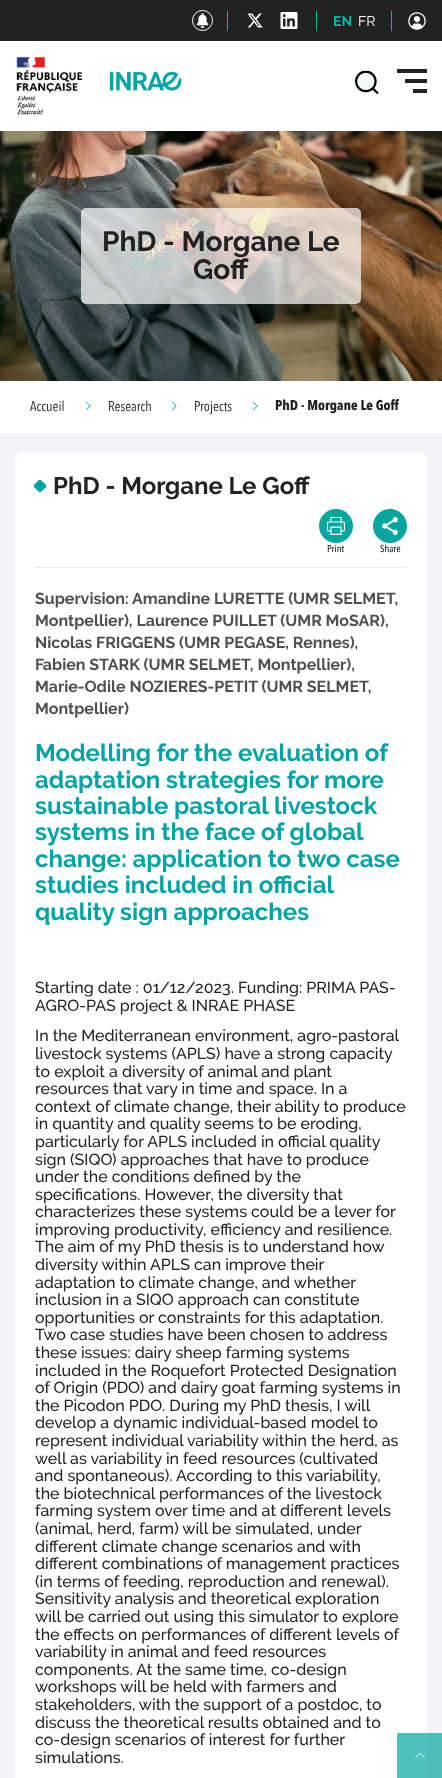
(async () => {
  const canvas = document.querySelector("canvas");
  canvas.width = 442;
  canvas.height = 1778;
  const ctx = canvas.getContext("2d");
  ctx.miterLimit = 4;
  ctx.fontKerning = "normal";
  async function loadImage(src) {
    const img = new Image();
    img.src = src;
    await img.decode();
    return img;
  }
  let path;

  ctx.fillStyle = "#ffffff";
  ctx.fillRect(0, 0, 442, 1778);
  ctx.fillStyle = "#222222";
  ctx.fillRect(0, 0, 442, 41);
  ctx.beginPath();
  ctx.arc(202.5, 20.5, 10, 0, Math.PI * 2);
  ctx.strokeStyle = "#ffffff";
  ctx.stroke();
  ctx.drawImage(await loadImage("img/1.png"), 196, 13, 13, 15);
  ctx.fillStyle = "#00b9ab";
  ctx.fillRect(227, 11, 1, 20);
  ctx.drawImage(await loadImage("img/2.png"), 247, 13, 16, 15);
  ctx.drawImage(await loadImage("img/3.png"), 280, 12, 18, 17);
  ctx.fillRect(316, 11, 1, 20);
  ctx.fillRect(391, 11, 1, 20);
  ctx.drawImage(await loadImage("img/4.png"), 408, 12, 18, 18);
  ctx.drawImage(await loadImage("img/5.png"), 16, 56, 166, 59);
  ctx.drawImage(await loadImage("img/6.png"), 355, 70, 24, 24);
  for (const [x, y, w, h, color] of [
    [397, 69, 30, 4, "#222222"],
    [405, 79, 22, 4, "#222222"],
    [413, 89, 14, 4, "#222222"],
  ]) {
    ctx.fillStyle = color;
    ctx.fillRect(x, y, w, h);
  }
  ctx.drawImage(await loadImage("img/7.png"), 0, 131, 442, 250);
  ctx.fillStyle = "rgba(255, 255, 255, 0.7)";
  ctx.beginPath();
  ctx.roundRect(81, 208, 280, 96, 5);
  ctx.fill();
  ctx.drawImage(await loadImage("img/8.png"), 86, 401, 5, 10);
  ctx.drawImage(await loadImage("img/8.png"), 172, 401, 5, 10);
  ctx.drawImage(await loadImage("img/9.png"), 253, 401, 5, 10);
  ctx.fillStyle = "#f3f3f8";
  ctx.fillRect(0, 433, 442, 1345);
  ctx.fillStyle = "#4cbdba";
  ctx.fillRect(427, 1733, 15, 45);
  ctx.fillStyle = "#ffffff";
  ctx.beginPath();
  ctx.roundRect(15, 453, 412, 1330, 5);
  ctx.fill();
  ctx.fillStyle = "#4fc1bc";
  ctx.fillRect(397, 1733, 30, 45);
  ctx.fillStyle = "#eaeaea";
  ctx.fillRect(35, 567, 372, 1);
  ctx.fillStyle = "#00a3a6";
  path = new Path2D("M41.5 480.5L46 485C47 487 44.5 488.5 43.5 489.5C42.5 490.5 40.5 493.5 38.5 491.5L34 487C33 485 35.5 483.5 36.5 482.5C37.5 481.5 39.5 478.5 41.5 480.5Z");
  ctx.fill(path);
  ctx.fillStyle = "#04a69f";
  ctx.beginPath();
  ctx.arc(336, 526, 17, 0, Math.PI * 2);
  ctx.fill();
  ctx.drawImage(await loadImage("img/10.png"), 327, 517, 18, 18);
  ctx.beginPath();
  ctx.arc(390, 526, 17, 0, Math.PI * 2);
  ctx.fill();
  ctx.drawImage(await loadImage("img/11.png"), 382, 517, 16, 18);
  ctx.drawImage(await loadImage("img/12.png"), 415, 1753, 10, 6);
  ctx.font = "bold 14px Raleway";
  ctx.fillStyle = "#00b9ab";
  ctx.fillText("EN", 333, 26);
  ctx.font = "14px Raleway";
  ctx.fillStyle = "#ffffff";
  ctx.fillText("FR", 358, 26);
  ctx.font = "bold 28px Raleway";
  ctx.fillStyle = "#222222";
  ctx.fillText("PhD - Morgane Le", 102, 251);
  ctx.fillText("Goff", 193, 279);
  ctx.font = "14px Avenir Next";
  for (const [text, x, y] of [
    ["Accueil", 30, 411],
    ["Research", 108, 411],
    ["Projects", 194, 411],
  ]) {
    ctx.fillText(text, x, y);
  }
  ctx.font = "bold 14px Avenir Next";
  ctx.fillText("PhD - Morgane Le Goff", 275, 410);
  ctx.font = "bold 24px Raleway";
  ctx.fillText("PhD - Morgane Le Goff", 53, 494);
  ctx.font = "500 10px Avenir Next";
  ctx.fillText("Print", 327, 552);
  ctx.fillText("Share", 380, 552);
  ctx.font = "bold 16px Raleway";
  ctx.fillStyle = "#4f4f4f";
  for (const [text, x, y] of [
    ["Supervision:", 35, 604],
    ["Amandine LURETTE (UMR SELMET,", 132, 604],
    ["Montpellier), Laurence PUILLET (UMR MoSAR),", 35, 626],
    ["Nicolas FRIGGENS (UMR PEGASE, Rennes),", 35, 648],
    ["Fabien STARK (UMR SELMET, Montpellier),", 35, 670],
    ["Marie-Odile NOZIERES-PETIT (UMR SELMET,", 35, 692],
    ["Montpellier)", 35, 714],
  ]) {
    ctx.fillText(text, x, y);
  }
  ctx.font = "bold 24px Raleway";
  ctx.fillStyle = "#00a3a6";
  for (const [text, x, y] of [
    ["Modelling for the evaluation of", 35, 761],
    ["adaptation strategies for more", 35, 788],
    ["sustainable pastoral livestock", 35, 814],
    ["systems in the face of global", 35, 840],
    ["change: application to two case", 35, 867],
    ["studies included in official", 35, 893],
    ["quality sign approaches", 35, 920],
  ]) {
    ctx.fillText(text, x, y);
  }
  ctx.font = "500 16px Raleway";
  ctx.fillStyle = "#222222";
  for (const [text, x, y] of [
    ["Starting date : 01/12/2023. Funding: PRIMA PAS-", 35, 993],
    ["AGRO-PAS project & INRAE PHASE", 35, 1011],
    ["In the Mediterranean environment, agro-pastoral", 35, 1041],
    ["livestock systems (APLS) have a strong capacity", 35, 1059],
    ["to exploit a diversity of animal and plant", 35, 1077],
    ["resources that vary in time and space. In a", 35, 1094],
    ["context of climate change, their ability to produce", 35, 1112],
    ["in quantity and quality seems to be eroding,", 35, 1129],
    ["particularly for APLS included in official quality", 35, 1147],
    ["sign (SIQO) approaches that have to produce", 35, 1165],
    ["under the conditions defined by the", 35, 1182],
    ["specifications. However, the diversity that", 35, 1200],
    ["characterizes these systems could be a lever for", 35, 1217],
    ["improving productivity, efficiency and resilience.", 35, 1235],
    ["The aim of my PhD thesis is to understand how", 35, 1252],
    ["diversity within APLS can improve their", 35, 1270],
    ["adaptation to climate change, and whether", 35, 1288],
    ["inclusion in a SIQO approach can constitute", 35, 1305],
    ["opportunities or constraints for this adaptation.", 35, 1323],
    ["Two case studies have been chosen to address", 35, 1340],
    ["these issues: dairy sheep farming systems", 35, 1358],
    ["included in the Roquefort Protected Designation", 35, 1376],
    ["of Origin (PDO) and dairy goat farming systems in", 35, 1393],
    ["the Picodon PDO. During my PhD thesis, I will", 35, 1411],
    ["develop a dynamic individual-based model to", 35, 1428],
    ["represent individual variability within the herd, as", 35, 1446],
    ["well as variability in feed resources (cultivated", 35, 1464],
    ["and spontaneous). According to this variability,", 35, 1481],
    ["the biotechnical performances of the livestock", 35, 1499],
    ["farming system over time and at different levels", 35, 1516],
    ["(animal, herd, farm) will be simulated, under", 35, 1534],
    ["different climate change scenarios and with", 35, 1552],
    ["different combinations of management practices", 35, 1569],
    ["(in terms of feeding, reproduction and renewal).", 35, 1587],
    ["Sensitivity analysis and theoretical exploration", 35, 1604],
    ["will be carried out using this simulator to explore", 35, 1622],
    ["the effects on performances of different levels of", 35, 1640],
    ["variability in animal and feed resources", 35, 1657],
    ["components. At the same time, co-design", 35, 1675],
    ["workshops will be held with farmers and", 35, 1692],
    ["stakeholders, with the support of a postdoc, to", 35, 1710],
    ["discuss the theoretical results obtained and to", 35, 1728],
    ["co-design scenarios of interest for further", 35, 1745],
    ["simulations.", 35, 1763],
  ]) {
    ctx.fillText(text, x, y);
  }
})();
